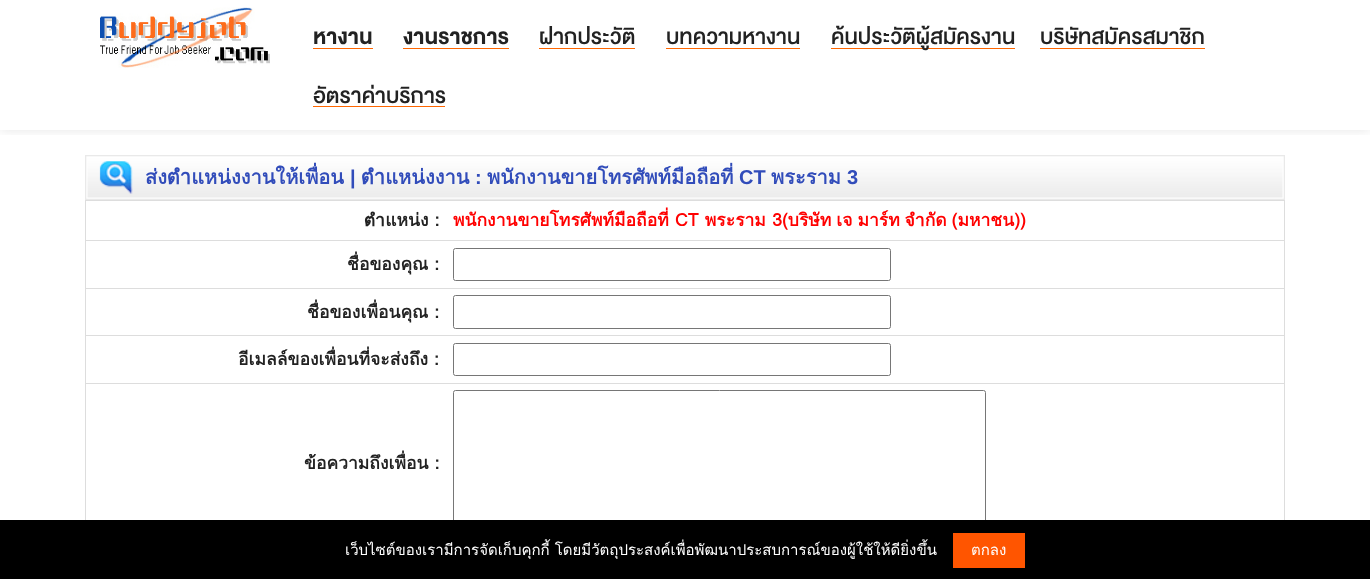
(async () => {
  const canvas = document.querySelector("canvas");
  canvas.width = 1370;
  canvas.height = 579;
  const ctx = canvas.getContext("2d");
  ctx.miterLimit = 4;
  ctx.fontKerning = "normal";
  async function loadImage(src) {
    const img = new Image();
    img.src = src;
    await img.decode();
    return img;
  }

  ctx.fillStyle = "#ffffff";
  ctx.fillRect(0, 0, 1370, 579);
  ctx.save();
  ctx.beginPath();
  ctx.rect(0, 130, 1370, 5);
  ctx.clip();
  ctx.fillStyle = "rgba(0, 0, 0, 0.1)";
  ctx.filter = "blur(6px)";
  ctx.beginPath();
  ctx.rect(0, 0, 1370, 130);
  ctx.fill();
  ctx.filter = "none";
  ctx.restore();
  ctx.drawImage(await loadImage("img/1.png"), 100, 7, 170, 61);
  for (const [x, y, w, h, color] of [
    [313, 48, 60, 1, "#ff6600"],
    [403, 48, 106, 1, "#ff6600"],
    [539, 48, 96, 1, "#ff6600"],
    [666, 48, 134, 1, "#ff6600"],
    [831, 48, 184, 1, "#ff6600"],
    [1040, 48, 165, 1, "#ff6600"],
    [313, 106, 132, 1, "#ff6600"],
  ]) {
    ctx.fillStyle = color;
    ctx.fillRect(x, y, w, h);
  }
  ctx.drawImage(await loadImage("img/2.png"), 85, 155, 1200, 45);
  for (const [x, y, w, h, color] of [
    [85, 200, 1200, 320, "#dddddd"],
    [86, 201, 1198, 39, "#ffffff"],
    [86, 241, 1198, 47, "#ffffff"],
  ]) {
    ctx.fillStyle = color;
    ctx.fillRect(x, y, w, h);
  }
  ctx.beginPath();
  ctx.roundRect(453.5, 248.5, 437, 32, 2);
  ctx.strokeStyle = "#767676";
  ctx.stroke();
  ctx.fillRect(86, 289, 1198, 46);
  ctx.beginPath();
  ctx.roundRect(453.5, 295.5, 437, 33, 2);
  ctx.stroke();
  ctx.fillRect(86, 336, 1198, 47);
  ctx.beginPath();
  ctx.roundRect(453.5, 343.5, 437, 32, 2);
  ctx.stroke();
  ctx.fillRect(86, 384, 1198, 136);
  ctx.beginPath();
  ctx.roundRect(453.5, 390.5, 532, 138, 2);
  ctx.stroke();
  ctx.fillStyle = "#000000";
  ctx.fillRect(0, 520, 1370, 59);
  ctx.fillStyle = "#ff5500";
  ctx.fillRect(953, 533, 72, 35);
  ctx.font = "bold 22.5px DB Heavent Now";
  ctx.fillStyle = "#222222";
  ctx.fillText("หางาน", 313, 44);
  ctx.fillText("งานราชการ", 403, 44);
  ctx.font = "500 22.5px DB Heavent Now";
  for (const [text, x, y] of [
    ["ฝากประวัติ", 539, 44],
    ["บทความหางาน", 666, 44],
    ["ค้นประวัติผู้สมัครงาน", 831, 44],
    ["บริษัทสมัครสมาชิก", 1040, 44],
    ["อัตราค่าบริการ", 313, 103],
  ]) {
    ctx.fillText(text, x, y);
  }
  ctx.font = "bold 20px Loma";
  ctx.fillStyle = "#314cba";
  ctx.fillText("ส่งตำแหน่งงานให้เพื่อน", 145, 184);
  ctx.font = "bold 20px Liberation Sans";
  ctx.fillText("|", 350, 184);
  ctx.font = "bold 20px Loma";
  ctx.fillText("ตำแหน่งงาน", 361, 184);
  ctx.font = "bold 20px Liberation Sans";
  ctx.fillText(":", 475, 184);
  ctx.font = "bold 20px Loma";
  ctx.fillText("พนักงานขายโทรศัพท์มือถือที่", 487, 184);
  ctx.font = "bold 20px Liberation Sans";
  ctx.fillText("CT", 739, 184);
  ctx.font = "bold 20px Loma";
  ctx.fillText("พระราม", 771, 184);
  ctx.font = "bold 20px Liberation Sans";
  ctx.fillText("3", 847, 184);
  ctx.font = "bold 17.5px Loma";
  ctx.fillStyle = "#222222";
  ctx.fillText("ตำแหน่ง :", 364, 226);
  ctx.wordSpacing = "0.5px";
  ctx.fillStyle = "#ff0000";
  ctx.fillText("พนักงานขายโทรศัพท์มือถือที่ CT พระราม 3", 453, 226);
  ctx.wordSpacing = "-1px";
  ctx.fillText("(บริษัท เจ มาร์ท จำกัด (มหาชน))", 782, 226);
  ctx.wordSpacing = "0px";
  ctx.fillStyle = "#222222";
  for (const [text, x, y] of [
    ["ชื่อของคุณ :", 347, 270],
    ["ชื่อของเพื่อนคุณ :", 307, 318],
    ["อีเมลล์ของเพื่อนที่จะส่งถึง :", 238, 365],
    ["ข้อความถึงเพื่อน :", 304, 469],
  ]) {
    ctx.fillText(text, x, y);
  }
  ctx.font = "15px Loma";
  ctx.fillStyle = "#ffffff";
  ctx.fillText("เว็บไซต์ของเรามีการจัดเก็บคุกกี้ โดยมีวัตถุประสงค์เพื่อพัฒนาประสบการณ์ของผู้ใช้ให้ดียิ่งขึ้น", 345, 555);
  ctx.fillText("ตกลง", 971, 555);
})();
